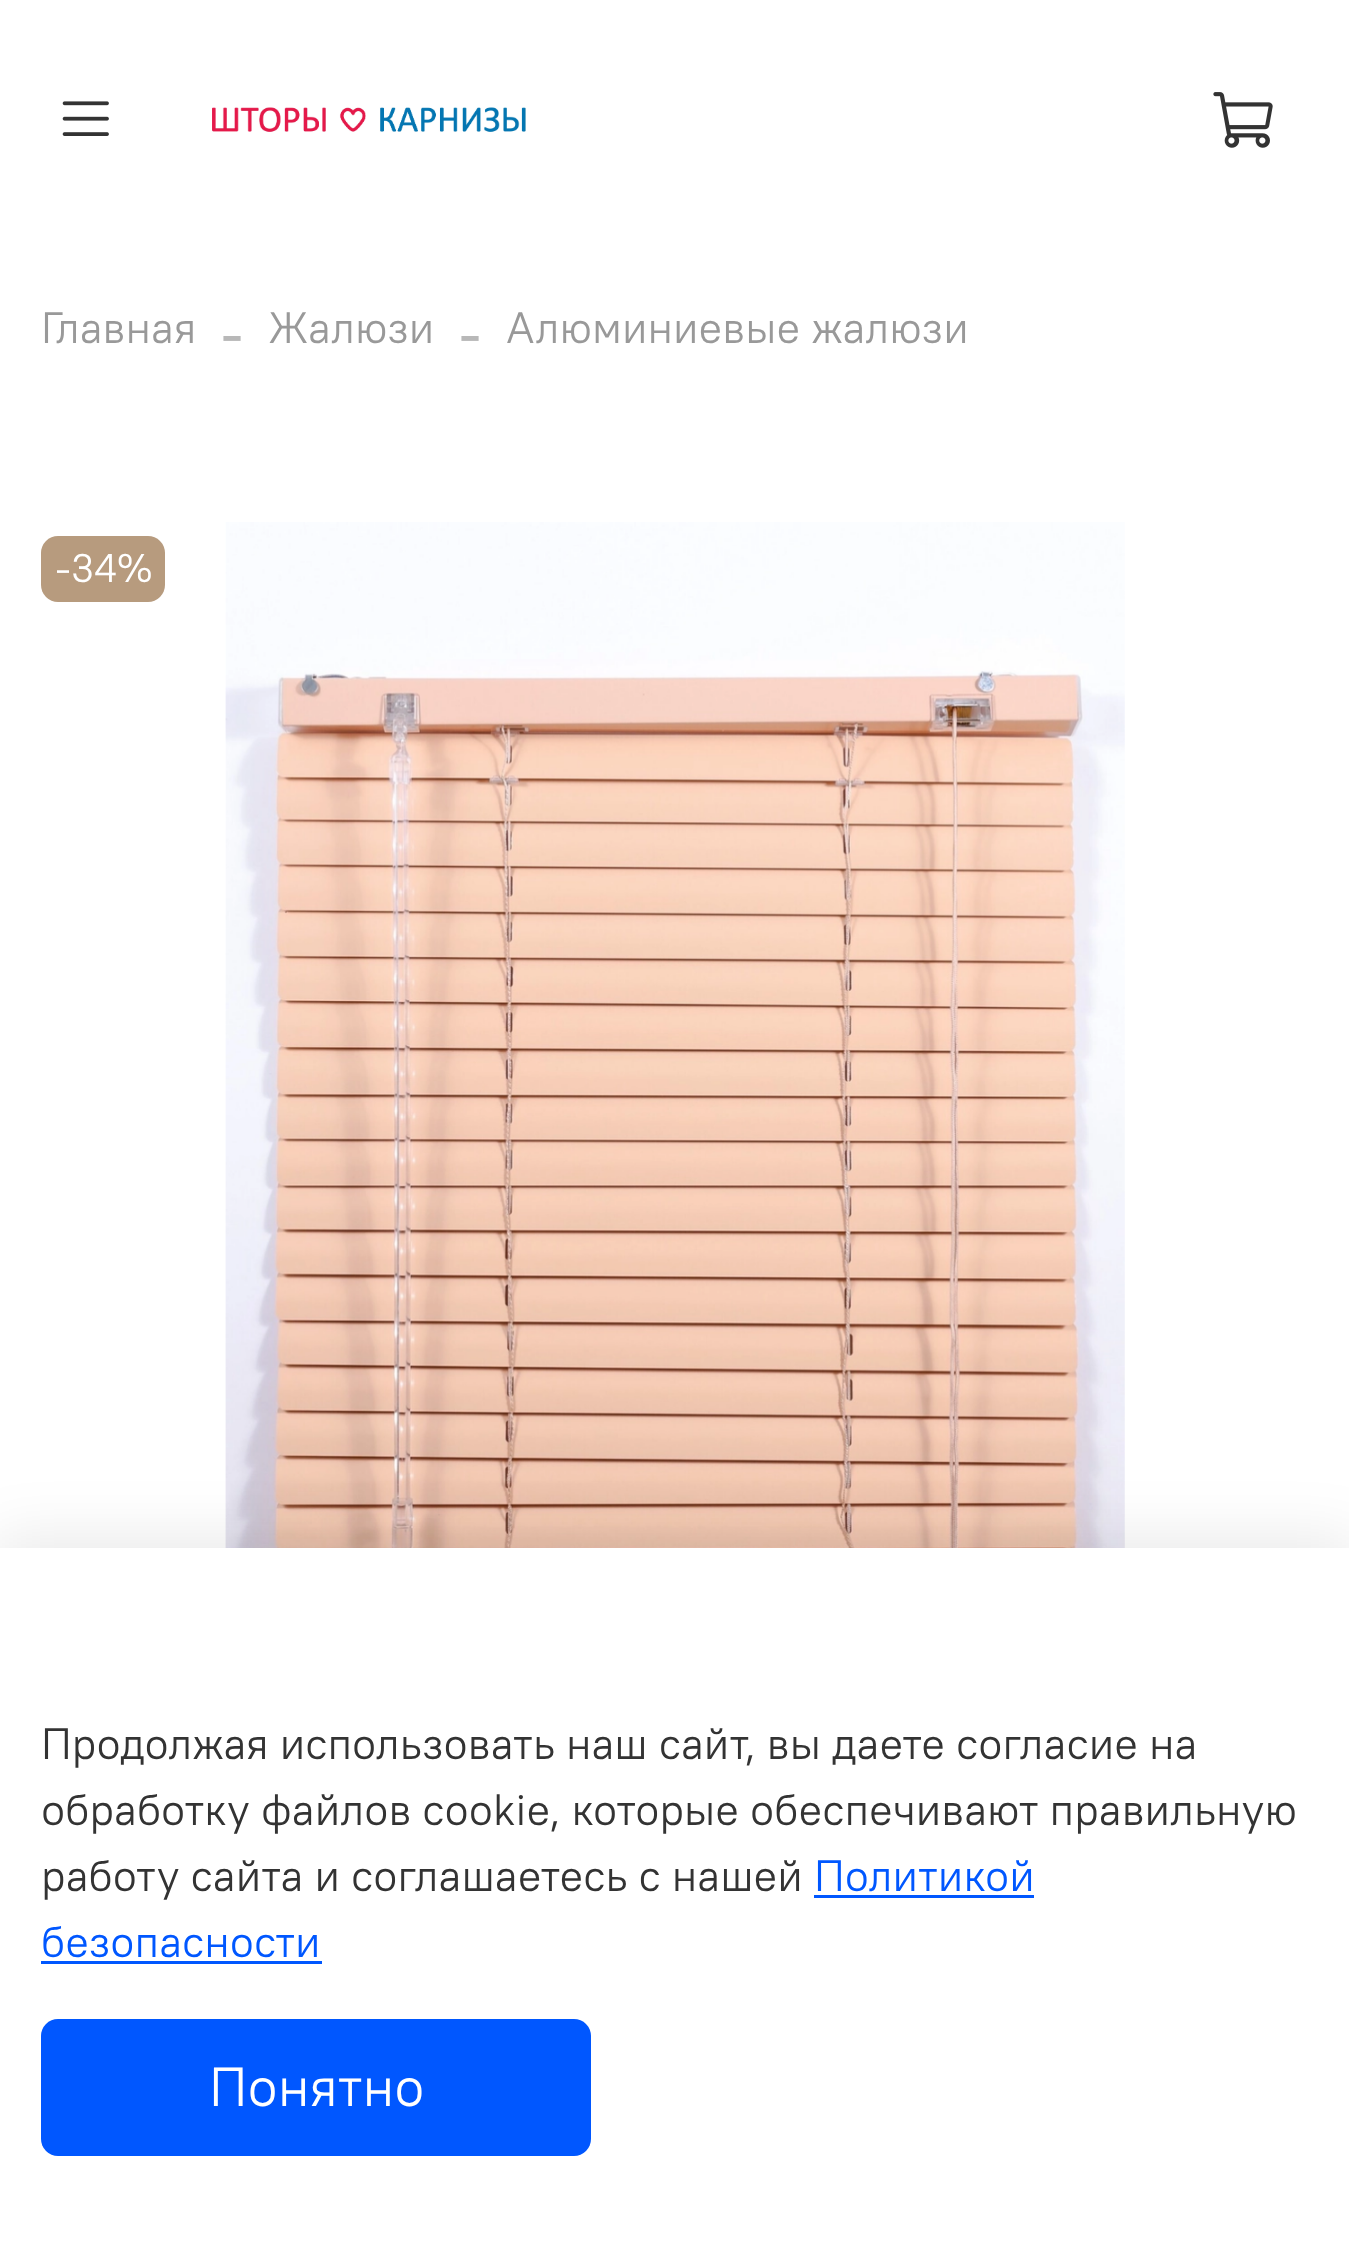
(async () => {
  const canvas = document.querySelector("canvas");
  canvas.width = 1349;
  canvas.height = 2261;
  const ctx = canvas.getContext("2d");
  ctx.miterLimit = 4;
  ctx.fontKerning = "normal";
  async function loadImage(src) {
    const img = new Image();
    img.src = src;
    await img.decode();
    return img;
  }

  ctx.fillStyle = "#ffffff";
  ctx.fillRect(0, 0, 1349, 2261);
  ctx.drawImage(await loadImage("img/1.png"), 62, 101, 47, 35);
  ctx.drawImage(await loadImage("img/2.png"), 212, 107, 314, 25);
  ctx.drawImage(await loadImage("img/3.png"), 1213, 92, 60, 56);
  ctx.fillStyle = "#b79b7e";
  ctx.beginPath();
  ctx.roundRect(41, 536, 124, 66, 17);
  ctx.fill();
  ctx.drawImage(await loadImage("img/4.png"), 225, 522, 900, 1026);
  ctx.fillStyle = "rgba(0, 0, 0, 0.09)";
  ctx.filter = "blur(31.5px)";
  ctx.beginPath();
  ctx.rect(-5, 1540, 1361, 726);
  ctx.fill();
  ctx.filter = "none";
  for (const [x, y, w, h, color] of [
    [0, 1548, 1349, 713, "#ffffff"],
    [814, 1895, 220, 3, "#0057ff"],
    [41, 1961, 281, 3, "#0057ff"],
  ]) {
    ctx.fillStyle = color;
    ctx.fillRect(x, y, w, h);
  }
  ctx.beginPath();
  ctx.roundRect(41, 2019, 550, 137, 17);
  ctx.fill();
  ctx.font = "44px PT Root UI";
  ctx.fillStyle = "#999999";
  ctx.fillText("Главная", 41, 343);
  ctx.font = "66px Liberation Serif";
  ctx.fillStyle = "#b8b8b8";
  ctx.fillText("-", 221, 354);
  ctx.font = "44px PT Root UI";
  ctx.fillStyle = "#999999";
  ctx.fillText("Жалюзи", 268, 343);
  ctx.font = "66px Liberation Serif";
  ctx.fillStyle = "#b8b8b8";
  ctx.fillText("-", 459, 354);
  ctx.font = "44px PT Root UI";
  ctx.fillStyle = "#999999";
  ctx.fillText("Алюминиевые жалюзи", 506, 343);
  ctx.font = "40px PT Root UI";
  ctx.fillStyle = "#ffffff";
  ctx.fillText("-34%", 55, 582);
  ctx.font = "44px PT Root UI";
  ctx.fillStyle = "#333333";
  for (const [text, x, y] of [
    ["Продолжая использовать наш сайт, вы даете согласие на", 41, 1759],
    ["обработку файлов cookie, которые обеспечивают правильную", 41, 1825],
    ["работу сайта и соглашаетесь с нашей", 41, 1891],
  ]) {
    ctx.fillText(text, x, y);
  }
  ctx.fillStyle = "#0057ff";
  ctx.fillText("Политикой", 814, 1891);
  ctx.fillText("безопасности", 41, 1957);
  ctx.font = "55px PT Root UI";
  ctx.fillStyle = "#ffffff";
  ctx.fillText("Понятно", 209, 2106);
})();
